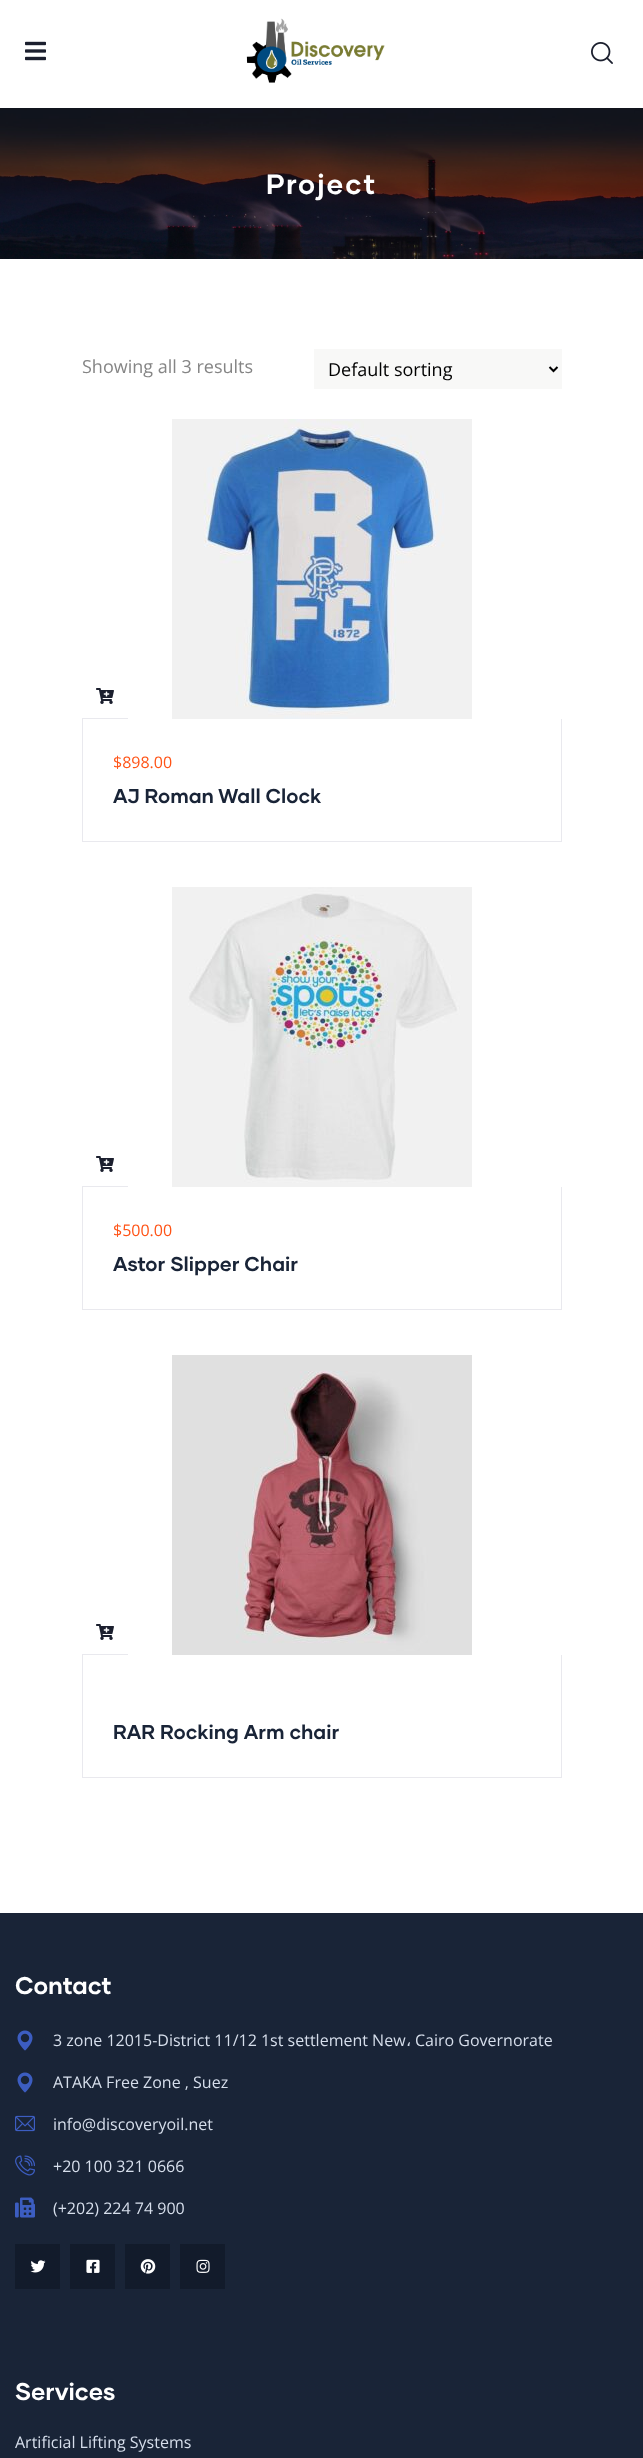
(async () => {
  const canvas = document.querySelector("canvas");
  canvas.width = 643;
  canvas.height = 2458;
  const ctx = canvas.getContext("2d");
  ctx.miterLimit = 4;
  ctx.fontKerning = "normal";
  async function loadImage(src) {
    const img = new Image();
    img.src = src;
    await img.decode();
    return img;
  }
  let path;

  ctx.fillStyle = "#ffffff";
  ctx.fillRect(0, 0, 643, 2458);
  ctx.drawImage(await loadImage("img/1.png"), 25, 41, 21, 20);
  ctx.drawImage(await loadImage("img/2.png"), 246, 18, 139, 65);
  ctx.drawImage(await loadImage("img/3.png"), 591, 42, 22, 22);
  ctx.drawImage(await loadImage("img/4.png"), 0, 108, 643, 151);
  ctx.fillStyle = "#f8f8f7";
  ctx.fillRect(314, 349, 248, 40);
  path = new Path2D("M549.5 367L553.5 371L557.5 367");
  ctx.strokeStyle = "#000000";
  ctx.lineWidth = 2;
  ctx.stroke(path);
  ctx.fillStyle = "#e9e9ee";
  ctx.fillRect(82, 718, 46, 1);
  ctx.drawImage(await loadImage("img/5.png"), 96, 688, 18, 16);
  ctx.drawImage(await loadImage("img/6.png"), 172, 419, 300, 300);
  for (const [x, y, w, h, color] of [
    [561, 719, 1, 123, "#e9e9ee"],
    [82, 841, 480, 1, "#e9e9ee"],
    [82, 719, 1, 123, "#e9e9ee"],
    [82, 1186, 46, 1, "#e9e9ee"],
  ]) {
    ctx.fillStyle = color;
    ctx.fillRect(x, y, w, h);
  }
  ctx.drawImage(await loadImage("img/5.png"), 96, 1156, 18, 16);
  ctx.drawImage(await loadImage("img/7.png"), 172, 887, 300, 300);
  for (const [x, y, w, h, color] of [
    [561, 1187, 1, 123, "#e9e9ee"],
    [82, 1309, 480, 1, "#e9e9ee"],
    [82, 1187, 1, 123, "#e9e9ee"],
    [82, 1654, 46, 1, "#e9e9ee"],
  ]) {
    ctx.fillStyle = color;
    ctx.fillRect(x, y, w, h);
  }
  ctx.drawImage(await loadImage("img/5.png"), 96, 1624, 18, 16);
  ctx.drawImage(await loadImage("img/8.png"), 172, 1355, 300, 300);
  for (const [x, y, w, h, color] of [
    [561, 1655, 1, 123, "#e9e9ee"],
    [82, 1777, 480, 1, "#e9e9ee"],
    [82, 1655, 1, 123, "#e9e9ee"],
    [0, 1913, 643, 545, "#192437"],
  ]) {
    ctx.fillStyle = color;
    ctx.fillRect(x, y, w, h);
  }
  ctx.drawImage(await loadImage("img/9.png"), 17, 2030, 16, 21);
  ctx.drawImage(await loadImage("img/9.png"), 17, 2072, 16, 21);
  ctx.drawImage(await loadImage("img/10.png"), 15, 2115, 20, 17);
  ctx.drawImage(await loadImage("img/11.png"), 15, 2155, 20, 21);
  ctx.drawImage(await loadImage("img/12.png"), 15, 2197, 20, 21);
  ctx.fillStyle = "#121b2b";
  ctx.fillRect(15, 2244, 45, 45);
  ctx.drawImage(await loadImage("img/13.png"), 30, 2260, 16, 13);
  ctx.fillRect(70, 2244, 45, 45);
  ctx.drawImage(await loadImage("img/14.png"), 86, 2259, 14, 14);
  ctx.fillRect(125, 2244, 45, 45);
  ctx.drawImage(await loadImage("img/15.png"), 140, 2259, 16, 15);
  ctx.fillRect(180, 2244, 45, 45);
  ctx.drawImage(await loadImage("img/16.png"), 196, 2259, 14, 14);
  ctx.letterSpacing = "2px";
  ctx.font = "bold 28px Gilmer";
  ctx.fillStyle = "#ffffff";
  ctx.fillText("Project", 266, 194);
  ctx.letterSpacing = "0px";
  ctx.font = "18px Open Sans";
  ctx.fillStyle = "#858585";
  ctx.fillText("Showing all 3 results", 82, 373);
  ctx.fillStyle = "#000000";
  ctx.fillText("Default sorting", 328, 376);
  ctx.font = "16px Open Sans";
  ctx.fillStyle = "#ff5316";
  ctx.fillText("$898.00", 113, 768);
  ctx.font = "bold 20px Gilmer";
  ctx.fillStyle = "#192437";
  ctx.fillText("AJ Roman Wall Clock", 113, 803);
  ctx.font = "16px Open Sans";
  ctx.fillStyle = "#ff5316";
  ctx.fillText("$500.00", 113, 1236);
  ctx.font = "bold 20px Gilmer";
  ctx.fillStyle = "#192437";
  ctx.fillText("Astor Slipper Chair", 113, 1271);
  ctx.fillText("RAR Rocking Arm chair", 113, 1739);
  ctx.font = "bold 24px Gilmer";
  ctx.fillStyle = "#ffffff";
  ctx.fillText("Contact", 15, 1994);
  ctx.font = "16px Open Sans";
  ctx.fillStyle = "#d6deeb";
  ctx.fillText("3 zone 12015-District 11/12 1st settlement New", 53, 2046);
  ctx.font = "16px DejaVu Sans";
  ctx.fillText("،", 406, 2046);
  ctx.font = "16px Open Sans";
  for (const [text, x, y] of [
    ["Cairo Governorate", 415, 2046],
    ["ATAKA Free Zone , Suez", 53, 2088],
    ["info@discoveryoil.net", 53, 2130],
    ["+20 100 321 0666", 53, 2172],
    ["(+202) 224 74 900", 53, 2214],
  ]) {
    ctx.fillText(text, x, y);
  }
  ctx.font = "bold 24px Gilmer";
  ctx.fillStyle = "#ffffff";
  ctx.fillText("Services", 15, 2400);
  ctx.font = "16px Open Sans";
  ctx.fillStyle = "#d6deeb";
  ctx.fillText("Artificial Lifting Systems", 15, 2448);
})();
